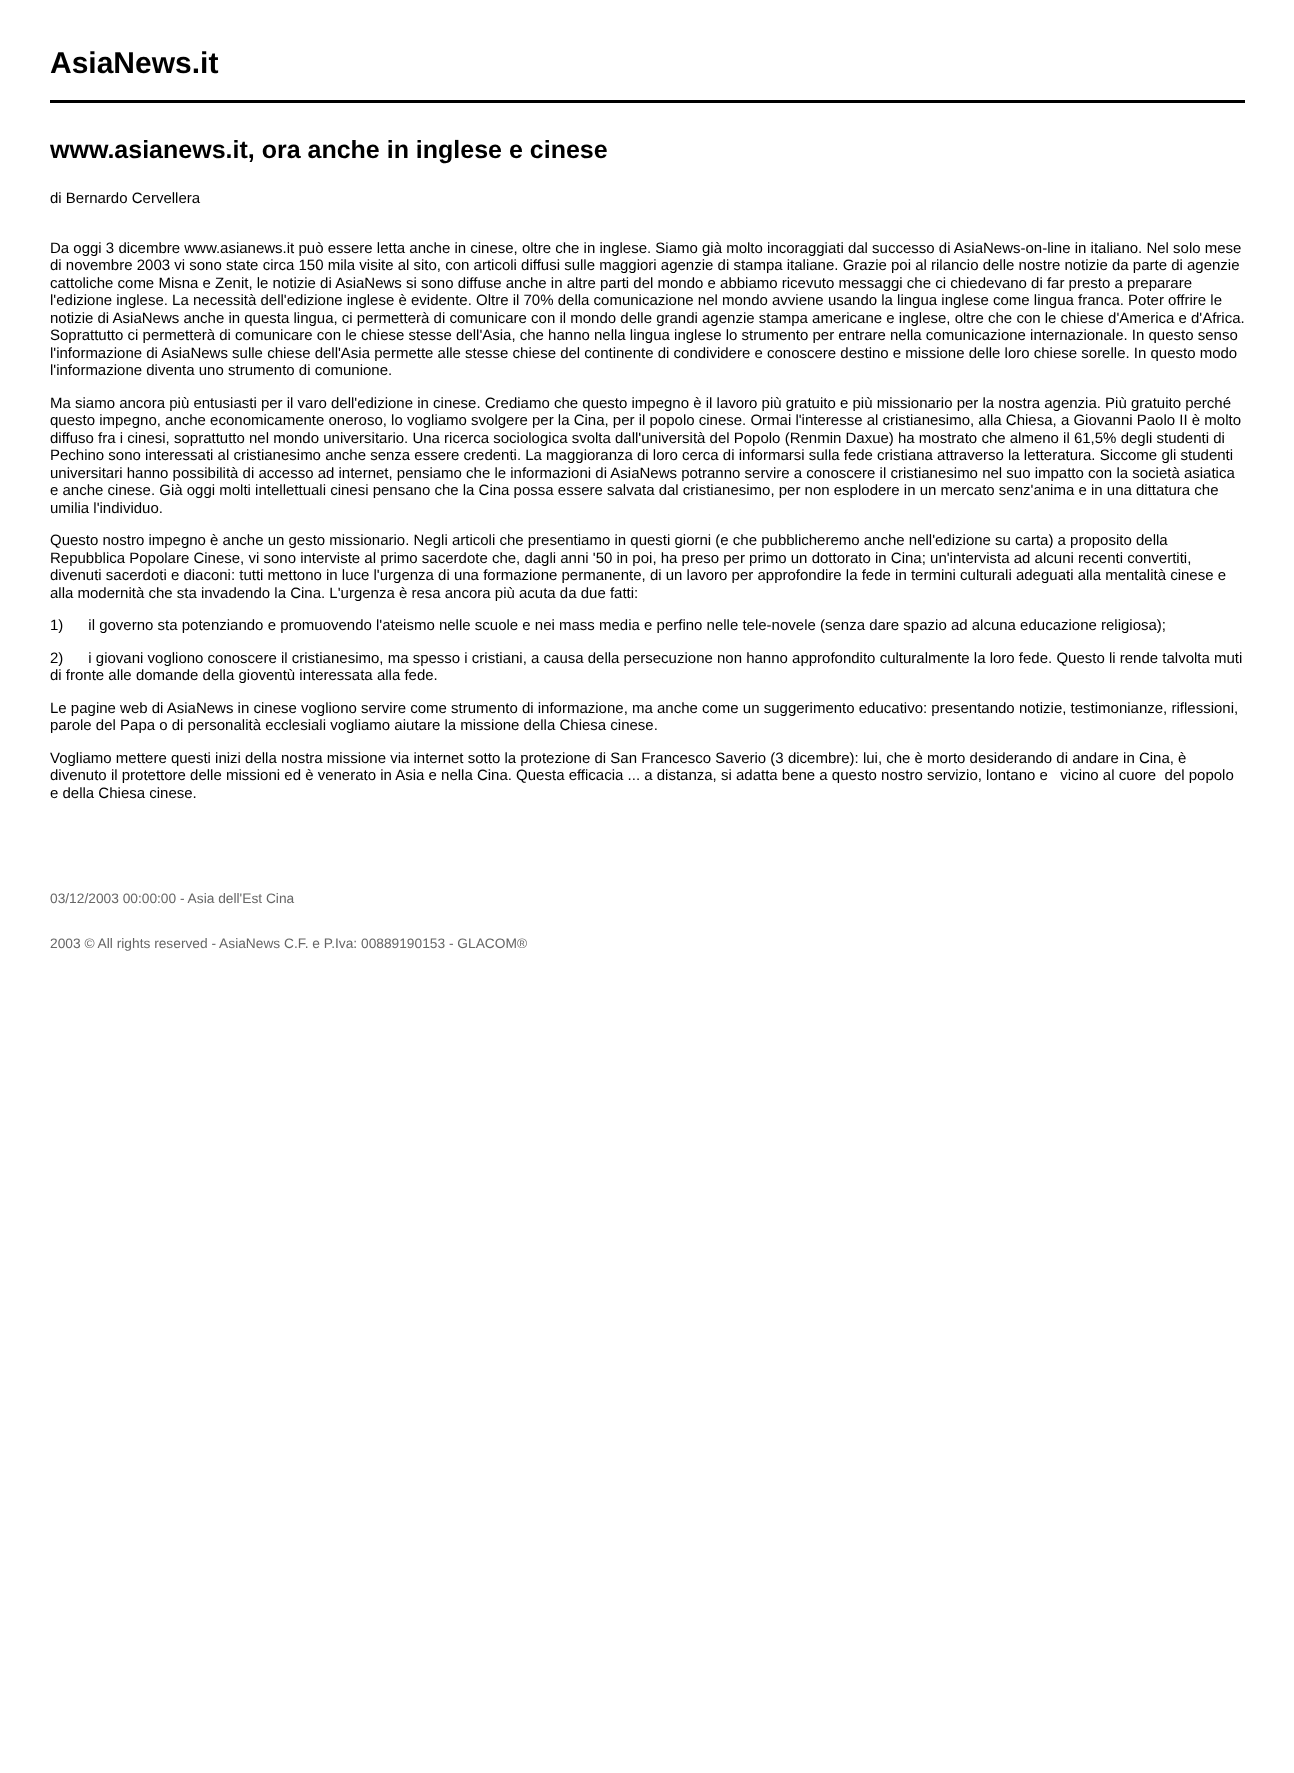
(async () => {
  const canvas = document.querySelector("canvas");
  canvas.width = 1294;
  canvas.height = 1773;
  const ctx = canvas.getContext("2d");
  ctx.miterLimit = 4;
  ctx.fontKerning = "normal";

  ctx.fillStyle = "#ffffff";
  ctx.fillRect(0, 0, 1294, 1773);
  ctx.fillStyle = "#000000";
  ctx.fillRect(50, 100, 1195, 3);
  ctx.font = "bold 30px Liberation Sans";
  ctx.fillText("AsiaNews.it", 50, 73);
  ctx.font = "bold 25px Liberation Sans";
  ctx.fillText("www.asianews.it, ora anche in inglese e cinese", 50, 158);
  ctx.font = "15px Liberation Sans";
  for (const [text, x, y] of [
    ["di Bernardo Cervellera", 50, 203],
    ["Da oggi 3 dicembre www.asianews.it può essere letta anche in cinese, oltre che in inglese. Siamo già molto incoraggiati dal successo di AsiaNews-on-line in italiano. Nel solo mese", 50, 253],
    ["di novembre 2003 vi sono state circa 150 mila visite al sito, con articoli diffusi sulle maggiori agenzie di stampa italiane. Grazie poi al rilancio delle nostre notizie da parte di agenzie", 50, 270],
    ["cattoliche come Misna e Zenit, le notizie di AsiaNews si sono diffuse anche in altre parti del mondo e abbiamo ricevuto messaggi che ci chiedevano di far presto a preparare", 50, 288],
    ["l'edizione inglese. La necessità dell'edizione inglese è evidente. Oltre il 70% della comunicazione nel mondo avviene usando la lingua inglese come lingua franca. Poter offrire le", 50, 305],
    ["notizie di AsiaNews anche in questa lingua, ci permetterà di comunicare con il mondo delle grandi agenzie stampa americane e inglese, oltre che con le chiese d'America e d'Africa.", 50, 323],
    ["Soprattutto ci permetterà di comunicare con le chiese stesse dell'Asia, che hanno nella lingua inglese lo strumento per entrare nella comunicazione internazionale. In questo senso", 50, 340],
    ["l'informazione di AsiaNews sulle chiese dell'Asia permette alle stesse chiese del continente di condividere e conoscere destino e missione delle loro chiese sorelle. In questo modo", 50, 358],
    ["l'informazione diventa uno strumento di comunione.", 50, 375],
    ["Ma siamo ancora più entusiasti per il varo dell'edizione in cinese. Crediamo che questo impegno è il lavoro più gratuito e più missionario per la nostra agenzia. Più gratuito perché", 50, 408],
    ["questo impegno, anche economicamente oneroso, lo vogliamo svolgere per la Cina, per il popolo cinese. Ormai l'interesse al cristianesimo, alla Chiesa, a Giovanni Paolo II è molto", 50, 425],
    ["diffuso fra i cinesi, soprattutto nel mondo universitario. Una ricerca sociologica svolta dall'università del Popolo (Renmin Daxue) ha mostrato che almeno il 61,5% degli studenti di", 50, 443],
    ["Pechino sono interessati al cristianesimo anche senza essere credenti. La maggioranza di loro cerca di informarsi sulla fede cristiana attraverso la letteratura. Siccome gli studenti", 50, 460],
    ["universitari hanno possibilità di accesso ad internet, pensiamo che le informazioni di AsiaNews potranno servire a conoscere il cristianesimo nel suo impatto con la società asiatica", 50, 478],
    ["e anche cinese. Già oggi molti intellettuali cinesi pensano che la Cina possa essere salvata dal cristianesimo, per non esplodere in un mercato senz'anima e in una dittatura che", 50, 495],
    ["umilia l'individuo.", 50, 513],
    ["Questo nostro impegno è anche un gesto missionario. Negli articoli che presentiamo in questi giorni (e che pubblicheremo anche nell'edizione su carta) a proposito della", 50, 545],
    ["Repubblica Popolare Cinese, vi sono interviste al primo sacerdote che, dagli anni '50 in poi, ha preso per primo un dottorato in Cina; un'intervista ad alcuni recenti convertiti,", 50, 563],
    ["divenuti sacerdoti e diaconi: tutti mettono in luce l'urgenza di una formazione permanente, di un lavoro per approfondire la fede in termini culturali adeguati alla mentalità cinese e", 50, 580],
    ["alla modernità che sta invadendo la Cina. L'urgenza è resa ancora più acuta da due fatti:", 50, 598],
    ["1)      il governo sta potenziando e promuovendo l'ateismo nelle scuole e nei mass media e perfino nelle tele-novele (senza dare spazio ad alcuna educazione religiosa);", 50, 630],
    ["2)      i giovani vogliono conoscere il cristianesimo, ma spesso i cristiani, a causa della persecuzione non hanno approfondito culturalmente la loro fede. Questo li rende talvolta muti", 50, 663],
    ["di fronte alle domande della gioventù interessata alla fede.", 50, 680],
    ["Le pagine web di AsiaNews in cinese vogliono servire come strumento di informazione, ma anche come un suggerimento educativo: presentando notizie, testimonianze, riflessioni,", 50, 713],
    ["parole del Papa o di personalità ecclesiali vogliamo aiutare la missione della Chiesa cinese.", 50, 730],
    ["Vogliamo mettere questi inizi della nostra missione via internet sotto la protezione di San Francesco Saverio (3 dicembre): lui, che è morto desiderando di andare in Cina, è", 50, 763],
    ["divenuto il protettore delle missioni ed è venerato in Asia e nella Cina. Questa efficacia ... a distanza, si adatta bene a questo nostro servizio, lontano e   vicino al cuore  del popolo", 50, 780],
    ["e della Chiesa cinese.", 50, 798],
  ]) {
    ctx.fillText(text, x, y);
  }
  ctx.font = "13.75px Liberation Sans";
  ctx.fillStyle = "#666666";
  ctx.fillText("03/12/2003 00:00:00 - Asia dell'Est Cina", 50, 903);
  ctx.fillText("2003 © All rights reserved - AsiaNews C.F. e P.Iva: 00889190153 - GLACOM®", 50, 948);
})();
